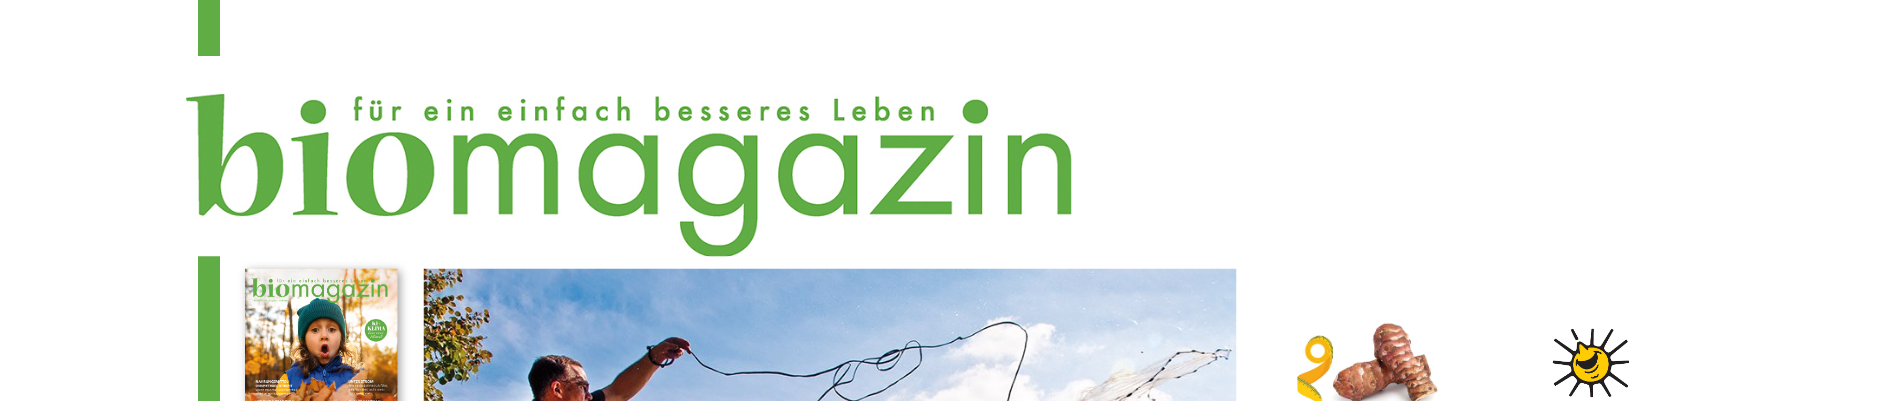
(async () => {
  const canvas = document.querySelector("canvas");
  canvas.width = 1894;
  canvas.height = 401;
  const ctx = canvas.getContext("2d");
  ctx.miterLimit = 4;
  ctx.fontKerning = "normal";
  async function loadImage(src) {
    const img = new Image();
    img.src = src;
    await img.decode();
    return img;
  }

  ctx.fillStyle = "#ffffff";
  ctx.fillRect(0, 0, 1894, 401);
  ctx.fillStyle = "#60ad45";
  ctx.fillRect(198, 0, 22, 56);
  ctx.fillRect(198, 256, 22, 145);
  ctx.fillStyle = "rgba(0, 0, 0, 0.38)";
  ctx.filter = "blur(5px)";
  ctx.beginPath();
  ctx.rect(248, 271, 152, 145);
  ctx.fill();
  ctx.filter = "none";
  ctx.drawImage(await loadImage("img/1.png"), 186, 94, 886, 163);
  ctx.drawImage(await loadImage("img/2.png"), 245, 268, 153, 133);
  ctx.drawImage(await loadImage("img/3.png"), 423, 268, 814, 133);
  ctx.drawImage(await loadImage("img/4.png"), 1297, 322, 142, 79);
  ctx.drawImage(await loadImage("img/5.png"), 1552, 328, 77, 70);
})();
